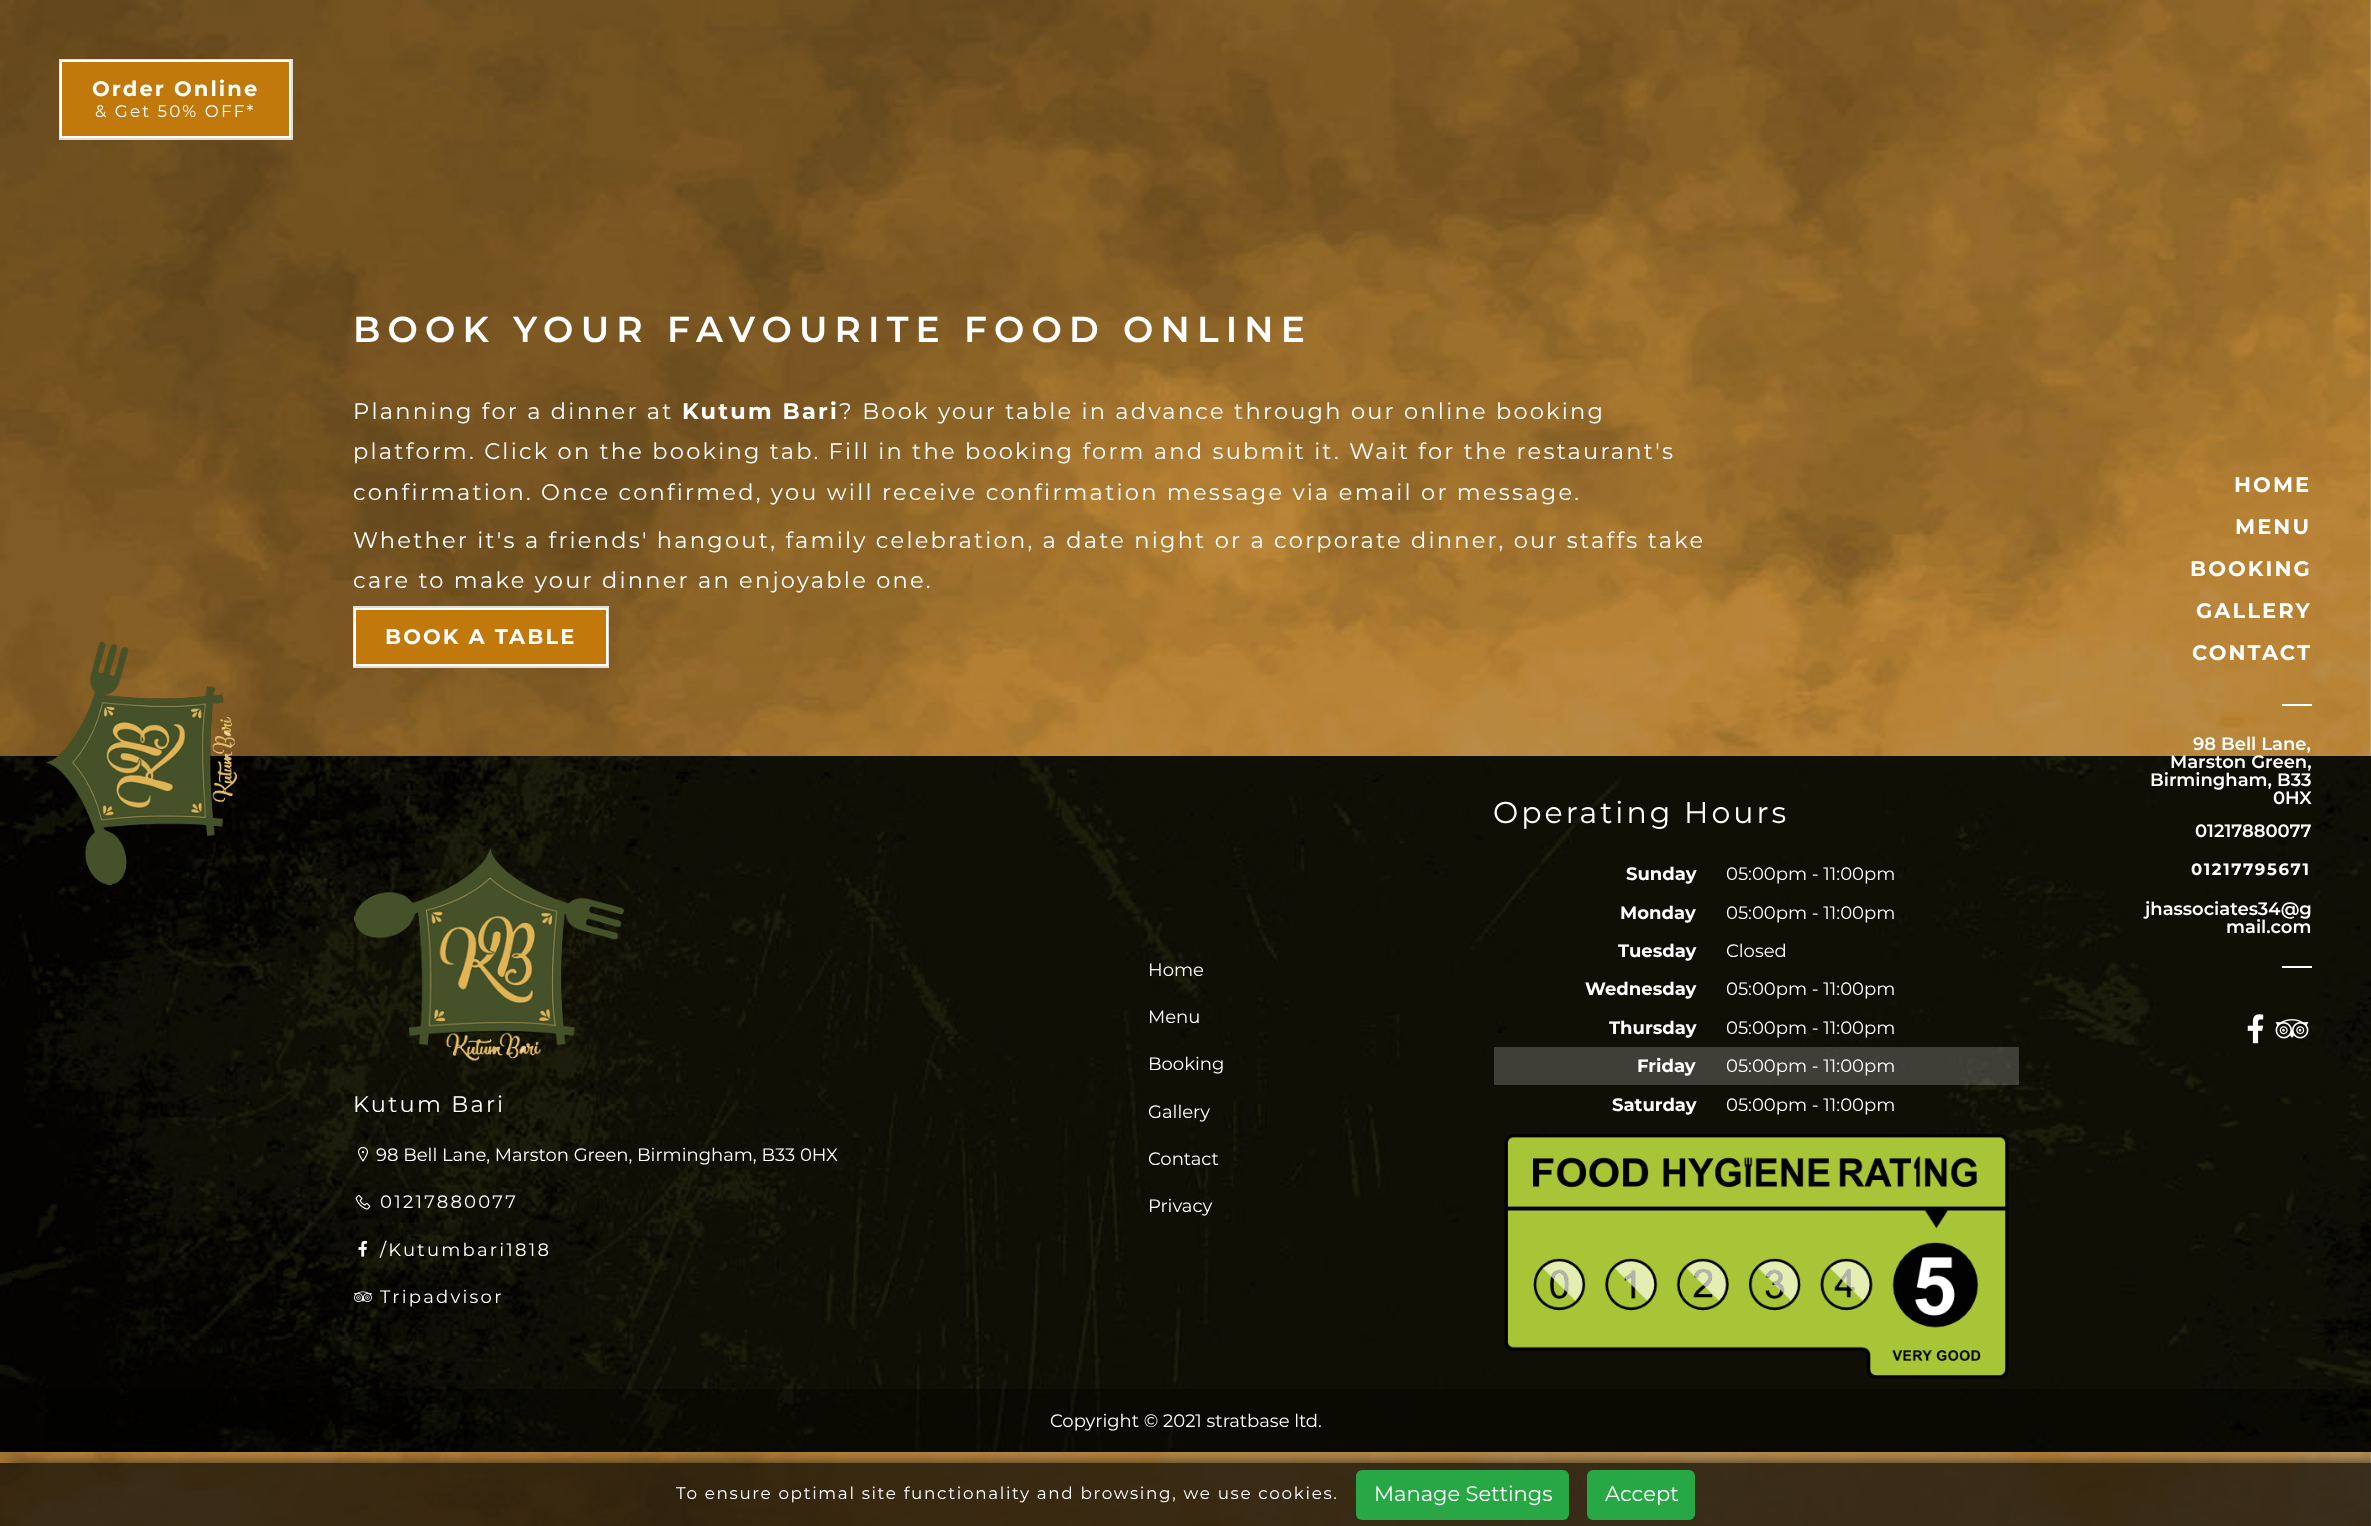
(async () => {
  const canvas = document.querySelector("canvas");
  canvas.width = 2371;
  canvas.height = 1526;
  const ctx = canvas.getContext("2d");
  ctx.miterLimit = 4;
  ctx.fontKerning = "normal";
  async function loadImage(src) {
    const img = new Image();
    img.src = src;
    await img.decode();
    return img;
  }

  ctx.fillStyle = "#ffffff";
  ctx.fillRect(0, 0, 2371, 1526);
  ctx.drawImage(await loadImage("img/1.png"), 0, 0, 2371, 1526);
  ctx.fillStyle = "#c1790c";
  ctx.beginPath();
  ctx.rect(61, 61, 229, 76);
  ctx.fill();
  ctx.strokeStyle = "#ffffff";
  ctx.lineWidth = 2;
  ctx.stroke();
  ctx.strokeStyle = "rgba(255, 255, 255, 0.8)";
  ctx.strokeRect(60, 60, 232, 79);
  ctx.drawImage(await loadImage("img/5.png"), 0, 756, 2371, 696);
  ctx.drawImage(await loadImage("img/2.png"), 45, 642, 192, 243);
  ctx.fillStyle = "#ffffff";
  ctx.fillRect(2282, 704, 30, 2);
  ctx.fillRect(2282, 966, 30, 2);
  ctx.drawImage(await loadImage("img/3.png"), 2247, 1014, 17, 30);
  ctx.drawImage(await loadImage("img/4.png"), 2275, 1019, 34, 20);
  ctx.fillStyle = "#c1790c";
  ctx.beginPath();
  ctx.rect(355, 609, 252, 56);
  ctx.fill();
  ctx.strokeStyle = "#ffffff";
  ctx.stroke();
  ctx.strokeStyle = "rgba(255, 255, 255, 0.8)";
  ctx.strokeRect(354, 607, 254, 60);
  ctx.drawImage(await loadImage("img/6.png"), 354, 848, 270, 213);
  ctx.drawImage(await loadImage("img/7.png"), 358, 1147, 10, 15);
  ctx.drawImage(await loadImage("img/8.png"), 355, 1195, 16, 15);
  ctx.drawImage(await loadImage("img/9.png"), 358, 1240, 9, 17);
  ctx.drawImage(await loadImage("img/10.png"), 354, 1291, 18, 11);
  ctx.fillStyle = "#3f3f37";
  ctx.fillRect(1494, 1047, 218, 38);
  ctx.fillStyle = "rgba(255, 255, 255, 0.2)";
  ctx.fillRect(1712, 1047, 307, 38);
  ctx.drawImage(await loadImage("img/11.png"), 1504, 1134, 505, 245);
  ctx.fillStyle = "rgba(0, 0, 0, 0.3)";
  ctx.fillRect(45, 1389, 2326, 63);
  ctx.save();
  ctx.beginPath();
  ctx.rect(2, 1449, 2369, 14);
  ctx.clip();
  ctx.fillStyle = "#242424";
  ctx.filter = "blur(7.5px)";
  ctx.beginPath();
  ctx.rect(14, 1464, 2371, 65);
  ctx.fill();
  ctx.filter = "none";
  ctx.restore();
  ctx.fillStyle = "rgba(0, 0, 0, 0.69)";
  ctx.fillRect(0, 1463, 2371, 63);
  ctx.fillStyle = "#28a745";
  ctx.beginPath();
  ctx.roundRect(1356, 1470, 213, 50, 6);
  ctx.fill();
  ctx.beginPath();
  ctx.roundRect(1587, 1470, 108, 50, 6);
  ctx.fill();
  ctx.letterSpacing = "2.1px";
  ctx.font = "bold 21px Montserrat";
  ctx.fillStyle = "#ffffff";
  ctx.fillText("Order Online", 92, 96);
  ctx.font = "16.8px Montserrat";
  ctx.fillText("& Get 50% OFF*", 95, 117);
  ctx.font = "bold 21px Montserrat";
  for (const [text, x, y] of [
    ["HOME", 2234, 492],
    ["MENU", 2235, 534],
    ["BOOKING", 2190, 576],
    ["GALLERY", 2196, 618],
    ["CONTACT", 2192, 660],
  ]) {
    ctx.fillText(text, x, y);
  }
  ctx.letterSpacing = "0px";
  ctx.font = "600 18px Montserrat";
  for (const [text, x, y] of [
    ["98 Bell Lane,", 2193, 750],
    ["Marston Green,", 2170, 768],
    ["Birmingham, B33", 2150, 786],
    ["0HX", 2273, 804],
    ["01217880077", 2195, 837],
  ]) {
    ctx.fillText(text, x, y);
  }
  ctx.letterSpacing = "1.6px";
  ctx.font = "bold 16.5px Montserrat";
  ctx.fillText("01217795671", 2191, 875);
  ctx.letterSpacing = "0px";
  ctx.font = "600 18px Montserrat";
  ctx.fillText("jhassociates34@g", 2145, 915);
  ctx.fillText("mail.com", 2226, 933);
  ctx.letterSpacing = "7.2px";
  ctx.font = "600 36px Montserrat";
  ctx.fillText("BOOK YOUR FAVOURITE FOOD ONLINE", 353, 342);
  ctx.letterSpacing = "2.25px";
  ctx.font = "22.5px Montserrat";
  ctx.fillText("Planning for a dinner at", 353, 419);
  ctx.font = "bold 22.5px Montserrat";
  ctx.fillText("Kutum Bari", 682, 419);
  ctx.font = "22.5px Montserrat";
  for (const [text, x, y] of [
    ["? Book your table in advance through our online booking", 839, 419],
    ["platform. Click on the booking tab. Fill in the booking form and submit it. Wait for the restaurant's", 353, 459],
    ["confirmation. Once confirmed, you will receive confirmation message via email or message.", 353, 500],
    ["Whether it's a friends' hangout, family celebration, a date night or a corporate dinner, our staffs take", 353, 548],
    ["care to make your dinner an enjoyable one.", 353, 588],
  ]) {
    ctx.fillText(text, x, y);
  }
  ctx.letterSpacing = "2.1px";
  ctx.font = "bold 21px Montserrat";
  ctx.fillText("BOOK A TABLE", 385, 644);
  ctx.letterSpacing = "2.25px";
  ctx.font = "22.5px Montserrat";
  ctx.fillText("Kutum Bari", 353, 1112);
  ctx.letterSpacing = "0px";
  ctx.font = "18px Montserrat";
  ctx.fillText("98 Bell Lane, Marston Green, Birmingham, B33 0HX", 376, 1161);
  ctx.letterSpacing = "2.25px";
  for (const [text, x, y] of [
    ["01217880077", 380, 1208],
    ["/Kutumbari1818", 380, 1256],
    ["Tripadvisor", 380, 1303],
  ]) {
    ctx.fillText(text, x, y);
  }
  ctx.letterSpacing = "0px";
  for (const [text, x, y] of [
    ["Home", 1148, 976],
    ["Menu", 1148, 1023],
    ["Booking", 1148, 1070],
    ["Gallery", 1148, 1118],
    ["Contact", 1148, 1165],
    ["Privacy", 1148, 1212],
  ]) {
    ctx.fillText(text, x, y);
  }
  ctx.letterSpacing = "3px";
  ctx.font = "30px Montserrat";
  ctx.fillText("Operating Hours", 1493, 823);
  ctx.letterSpacing = "0px";
  ctx.font = "bold 18px Montserrat";
  ctx.fillText("Sunday", 1626, 880);
  ctx.font = "18px Montserrat";
  ctx.fillText("05:00pm - 11:00pm", 1726, 880);
  ctx.font = "bold 18px Montserrat";
  ctx.fillText("Monday", 1620, 919);
  ctx.font = "18px Montserrat";
  ctx.fillText("05:00pm - 11:00pm", 1726, 919);
  ctx.font = "bold 18px Montserrat";
  ctx.fillText("Tuesday", 1618, 957);
  ctx.font = "18px Montserrat";
  ctx.fillText("Closed", 1726, 957);
  ctx.font = "bold 18px Montserrat";
  ctx.fillText("Wednesday", 1585, 995);
  ctx.font = "18px Montserrat";
  ctx.fillText("05:00pm - 11:00pm", 1726, 995);
  ctx.font = "bold 18px Montserrat";
  ctx.fillText("Thursday", 1609, 1034);
  ctx.font = "18px Montserrat";
  ctx.fillText("05:00pm - 11:00pm", 1726, 1034);
  ctx.font = "bold 18px Montserrat";
  ctx.fillText("Friday", 1637, 1072);
  ctx.font = "18px Montserrat";
  ctx.fillText("05:00pm - 11:00pm", 1726, 1072);
  ctx.font = "bold 18px Montserrat";
  ctx.fillText("Saturday", 1612, 1111);
  ctx.font = "18px Montserrat";
  ctx.fillText("05:00pm - 11:00pm", 1726, 1111);
  ctx.fillText("Copyright © 2021 stratbase ltd.", 1050, 1427);
  ctx.letterSpacing = "1.68px";
  ctx.font = "16.8px Montserrat";
  ctx.fillText("To ensure optimal site functionality and browsing, we use cookies.", 676, 1499);
  ctx.letterSpacing = "0px";
  ctx.font = "21px Montserrat";
  ctx.fillText("Manage Settings", 1374, 1501);
  ctx.fillText("Accept", 1605, 1501);
})();
